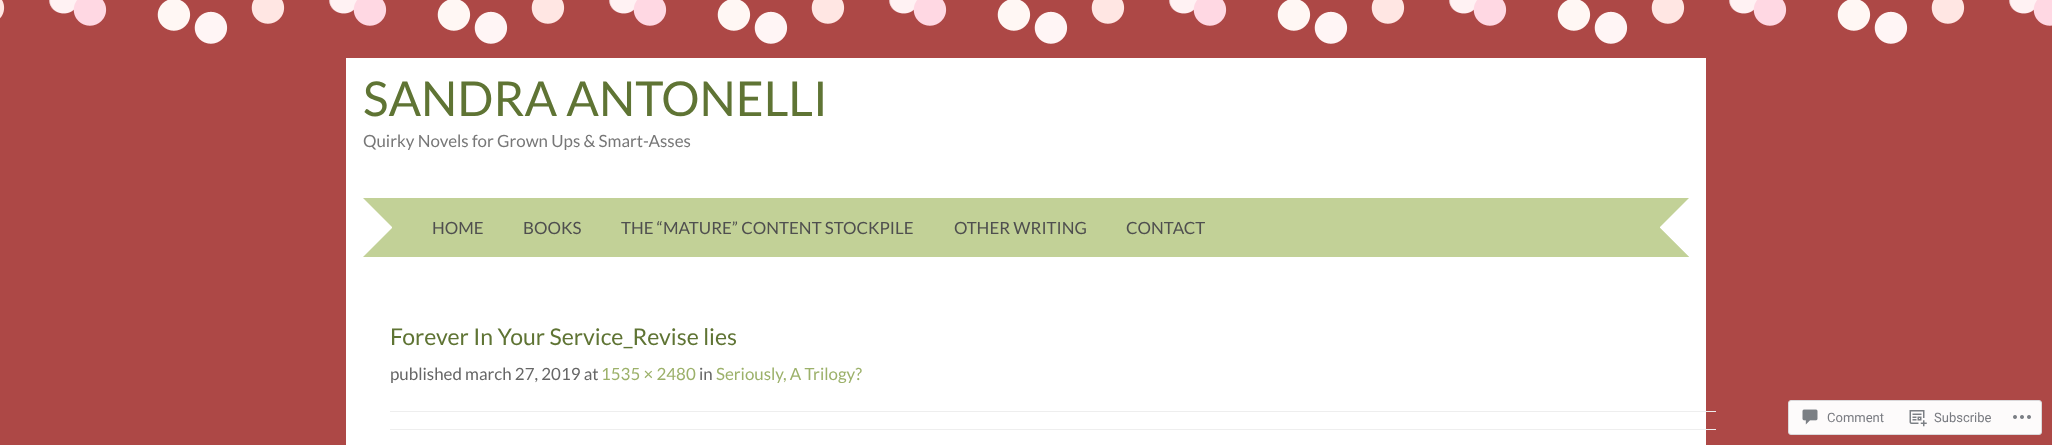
(async () => {
  const canvas = document.querySelector("canvas");
  canvas.width = 2052;
  canvas.height = 445;
  const ctx = canvas.getContext("2d");
  ctx.miterLimit = 4;
  ctx.fontKerning = "normal";
  async function loadImage(src) {
    const img = new Image();
    img.src = src;
    await img.decode();
    return img;
  }
  let path;

  ctx.fillStyle = "#ad4846";
  ctx.fillRect(0, 0, 2052, 445);
  ctx.drawImage(await loadImage("img/1.png"), 0, 0, 2052, 44);
  ctx.fillStyle = "#ffffff";
  ctx.fillRect(346, 58, 1360, 387);
  ctx.fillStyle = "#c2d197";
  ctx.fillRect(363, 198, 1326, 59);
  ctx.fillStyle = "#ffffff";
  path = new Path2D("M363 257V198L392 227V228Z");
  ctx.fill(path);
  path = new Path2D("M1689 198V257L1660 228V227Z");
  ctx.fill(path);
  ctx.fillStyle = "#c2d197";
  path = new Path2D("M1689 257H1629L1660 228Z");
  ctx.fill(path);
  ctx.fillStyle = "#eeeeee";
  ctx.fillRect(390, 411, 1326, 1);
  ctx.fillRect(390, 429, 1326, 1);
  ctx.fillStyle = "#fdfbfb";
  ctx.beginPath();
  ctx.roundRect(1788.5, 400.5, 253, 34, 2.5);
  ctx.fill();
  ctx.strokeStyle = "#dbd9db";
  ctx.stroke();
  ctx.drawImage(await loadImage("img/2.png"), 1802, 409, 16, 16);
  ctx.drawImage(await loadImage("img/3.png"), 1909, 410, 18, 17);
  ctx.drawImage(await loadImage("img/4.png"), 2013, 415, 18, 4);
  ctx.font = "48px Lato";
  ctx.fillStyle = "#5f7434";
  ctx.fillText("SANDRA ANTONELLI", 363, 116);
  ctx.font = "16.9px Lato";
  ctx.fillStyle = "#777777";
  ctx.fillText("Quirky Novels for Grown Ups & Smart-Asses", 363, 147);
  ctx.fillStyle = "#4f4f4f";
  for (const [text, x, y] of [
    ["HOME", 432, 234],
    ["BOOKS", 523, 234],
    ["THE “MATURE” CONTENT STOCKPILE", 621, 234],
    ["OTHER WRITING", 954, 234],
    ["CONTACT", 1126, 234],
  ]) {
    ctx.fillText(text, x, y);
  }
  ctx.font = "23px Lato";
  ctx.fillStyle = "#5f7434";
  ctx.fillText("Forever In Your Service_Revise lies", 390, 345);
  ctx.font = "16.9px Lato";
  ctx.fillStyle = "#666666";
  ctx.fillText("published march 27, 2019 at", 390, 380);
  ctx.fillStyle = "#9cb16a";
  ctx.fillText("1535 × 2480", 601, 380);
  ctx.fillStyle = "#666666";
  ctx.fillText("in", 699, 380);
  ctx.fillStyle = "#9cb16a";
  ctx.fillText("Seriously, A Trilogy?", 716, 380);
  ctx.font = "13px Roboto";
  ctx.fillStyle = "#797b81";
  ctx.fillText("Comment", 1827, 422);
  ctx.fillText("Subscribe", 1934, 422);
})();
